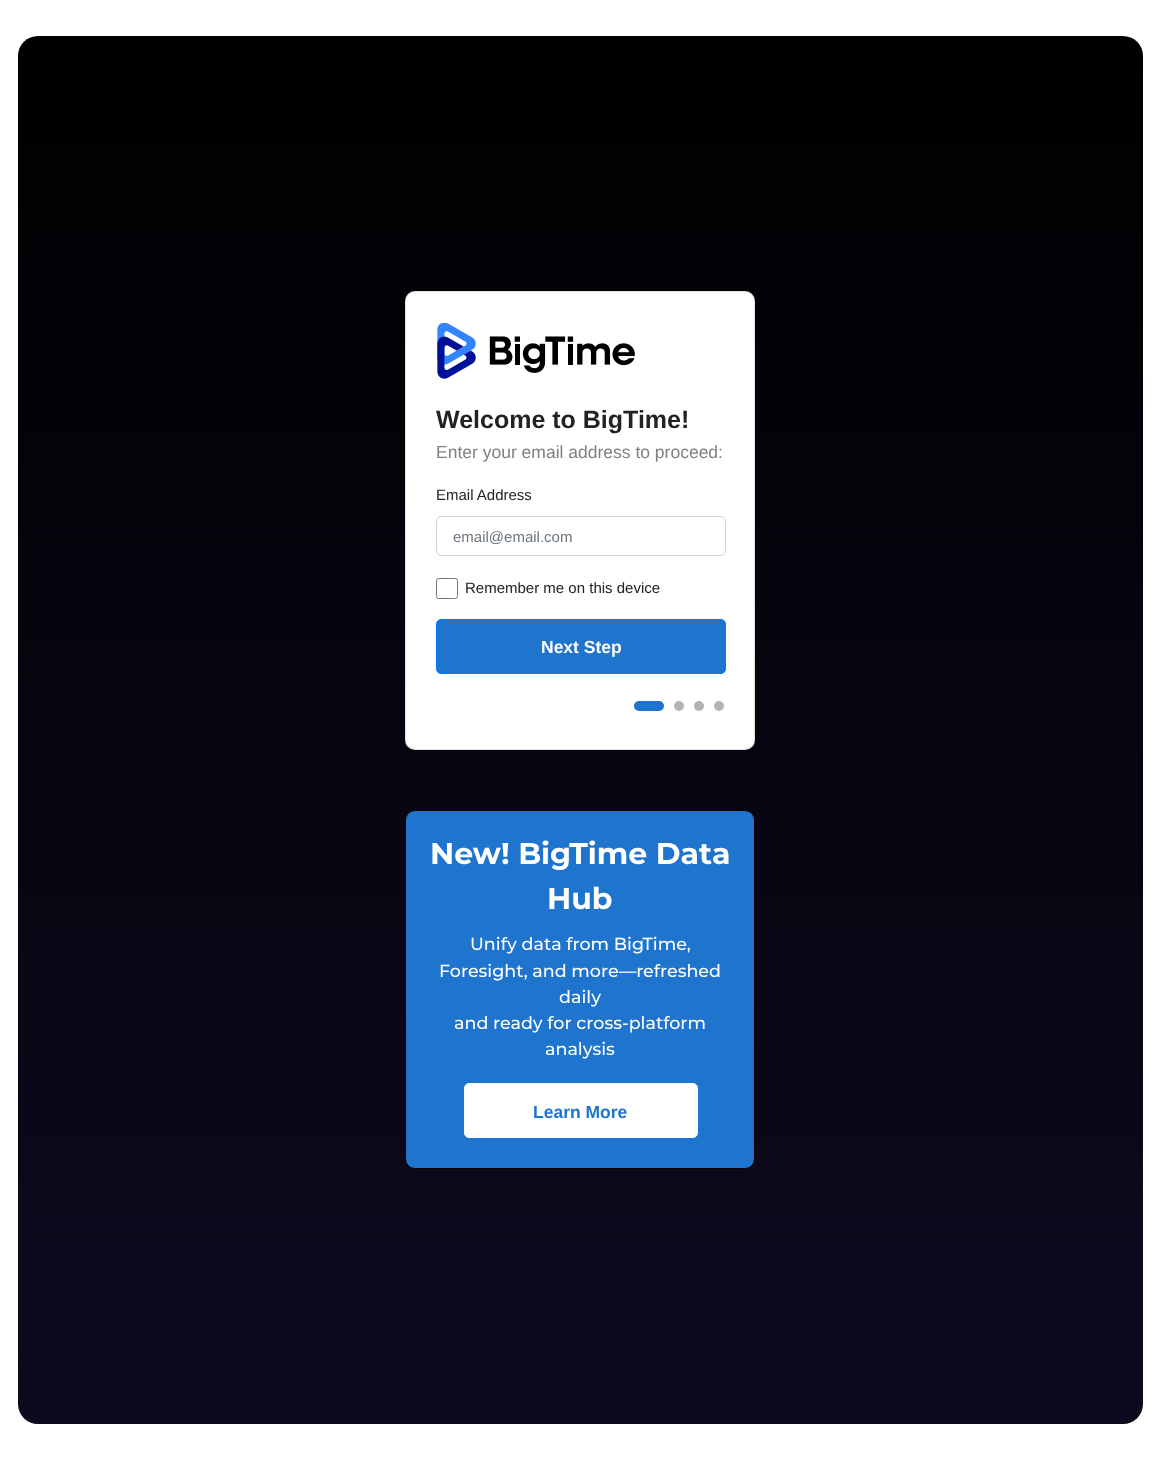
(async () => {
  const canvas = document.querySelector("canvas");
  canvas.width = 1159;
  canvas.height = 1460;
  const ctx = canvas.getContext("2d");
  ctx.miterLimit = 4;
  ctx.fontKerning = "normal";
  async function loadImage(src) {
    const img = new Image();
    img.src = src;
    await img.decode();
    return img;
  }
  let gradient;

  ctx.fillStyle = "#ffffff";
  ctx.fillRect(0, 0, 1159, 1460);
  gradient = ctx.createLinearGradient(580, 36, 580, 1424);
  gradient.addColorStop(0, "#000000");
  gradient.addColorStop(1, "#0f091f");
  ctx.fillStyle = gradient;
  ctx.beginPath();
  ctx.roundRect(18, 36, 1125, 1388, 20);
  ctx.fill();
  ctx.fillStyle = "#ffffff";
  ctx.beginPath();
  ctx.roundRect(405, 291, 350, 459, 10);
  ctx.fill();
  ctx.beginPath();
  ctx.roundRect(405.5, 291.5, 349, 458, 9.5);
  ctx.strokeStyle = "rgba(0, 0, 0, 0.12)";
  ctx.stroke();
  ctx.drawImage(await loadImage("img/1.png"), 437, 323, 198, 56);
  ctx.beginPath();
  ctx.roundRect(436.5, 516.5, 289, 39, 4.5);
  ctx.strokeStyle = "#ced4da";
  ctx.stroke();
  ctx.beginPath();
  ctx.roundRect(436.5, 578.5, 21, 20, 2);
  ctx.strokeStyle = "#767676";
  ctx.stroke();
  ctx.fillStyle = "#1f74ce";
  ctx.beginPath();
  ctx.roundRect(436.5, 619.5, 289, 54, 4.5);
  ctx.fill();
  ctx.strokeStyle = "#007bff";
  ctx.stroke();
  ctx.beginPath();
  ctx.roundRect(634, 701, 30, 10, 5);
  ctx.fill();
  ctx.fillStyle = "#b3b3b3";
  ctx.beginPath();
  ctx.arc(679, 706, 5, 0, Math.PI * 2);
  ctx.fill();
  ctx.beginPath();
  ctx.arc(699, 706, 5, 0, Math.PI * 2);
  ctx.fill();
  ctx.beginPath();
  ctx.arc(719, 706, 5, 0, Math.PI * 2);
  ctx.fill();
  ctx.fillStyle = "#1f74ce";
  ctx.beginPath();
  ctx.roundRect(405.5, 810.5, 349, 358, 9.5);
  ctx.fill();
  ctx.strokeStyle = "#000000";
  ctx.stroke();
  ctx.fillStyle = "#ffffff";
  ctx.beginPath();
  ctx.roundRect(464.5, 1083.5, 233, 54, 4.5);
  ctx.fill();
  ctx.strokeStyle = "#f8f9fa";
  ctx.stroke();
  ctx.font = "bold 25px Liberation Sans";
  ctx.fillStyle = "#222222";
  ctx.fillText("Welcome to BigTime!", 436, 428);
  ctx.font = "17.5px Liberation Sans";
  ctx.fillStyle = "#808080";
  ctx.fillText("Enter your email address to proceed:", 436, 458);
  ctx.font = "15px Liberation Sans";
  ctx.fillStyle = "#222222";
  ctx.fillText("Email Address", 436, 500);
  ctx.fillStyle = "#6c757d";
  ctx.fillText("email@email.com", 453, 542);
  ctx.fillStyle = "#222222";
  ctx.fillText("Remember me on this device", 465, 593);
  ctx.font = "bold 17.5px Liberation Sans";
  ctx.fillStyle = "#ffffff";
  ctx.fillText("Next Step", 541, 653);
  ctx.font = "bold 30px Montserrat";
  ctx.fillText("New! BigTime Data", 430, 864);
  ctx.fillText("Hub", 547, 909);
  ctx.font = "500 17.5px Montserrat";
  for (const [text, x, y] of [
    ["Unify data from BigTime,", 470, 950],
    ["Foresight, and more—refreshed", 439, 977],
    ["daily", 559, 1003],
    ["and ready for cross-platform", 454, 1029],
    ["analysis", 545, 1055],
  ]) {
    ctx.fillText(text, x, y);
  }
  ctx.font = "bold 17.5px Liberation Sans";
  ctx.fillStyle = "#1f74ce";
  ctx.fillText("Learn More", 533, 1118);
})();
